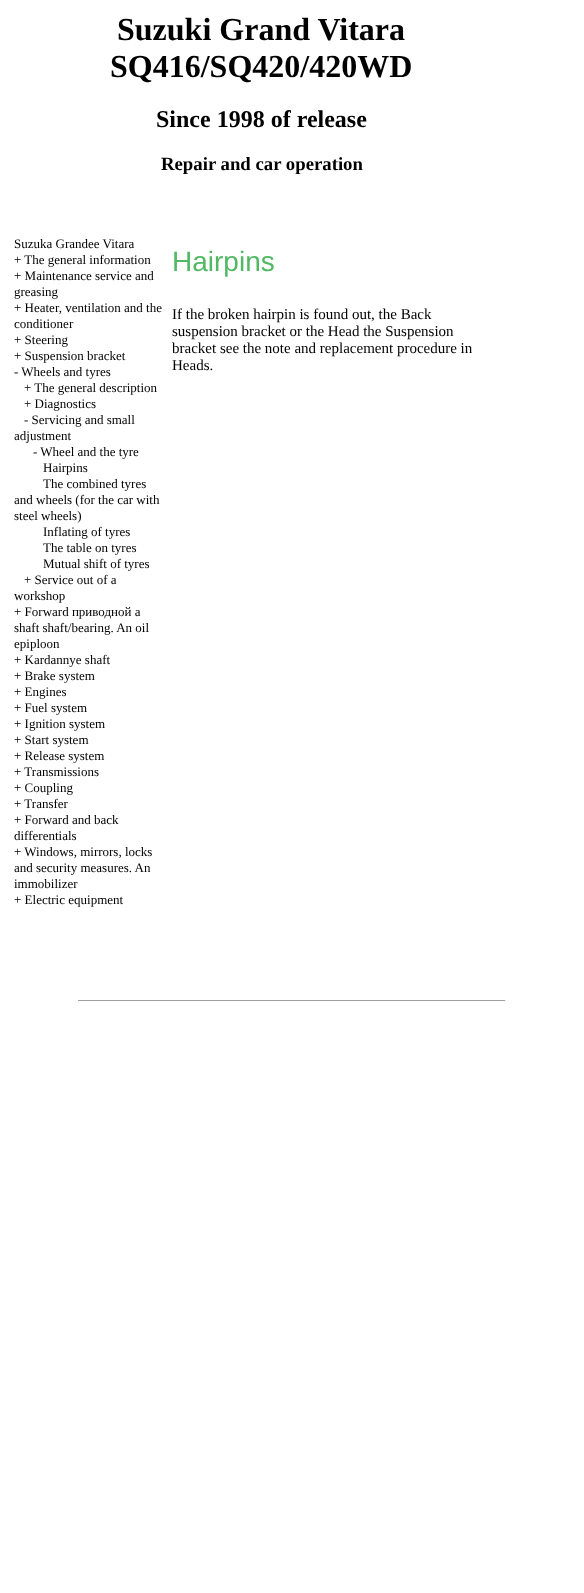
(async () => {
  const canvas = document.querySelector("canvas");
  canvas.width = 584;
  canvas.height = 1593;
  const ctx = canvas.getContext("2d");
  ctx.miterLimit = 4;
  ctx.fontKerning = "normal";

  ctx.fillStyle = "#ffffff";
  ctx.fillRect(0, 0, 584, 1593);
  ctx.fillStyle = "#9f9f9f";
  ctx.fillRect(78, 1000, 428, 1);
  ctx.fillStyle = "#eeeeee";
  ctx.fillRect(505, 1000, 1, 1);
  ctx.font = "bold 32px Liberation Serif";
  ctx.fillStyle = "#000000";
  ctx.fillText("Suzuki Grand Vitara", 117, 40);
  ctx.fillText("SQ416/SQ420/420WD", 110, 77);
  ctx.font = "bold 24px Liberation Serif";
  ctx.fillText("Since 1998 of release", 156, 127);
  ctx.font = "bold 18.75px Liberation Serif";
  ctx.fillText("Repair and car operation", 161, 170);
  ctx.font = "13px Liberation Serif";
  for (const [text, x, y] of [
    ["Suzuka Grandee Vitara", 14, 248],
    ["+ The general information", 14, 264],
    ["+ Maintenance service and", 14, 280],
    ["greasing", 14, 296],
    ["+ Heater, ventilation and the", 14, 312],
    ["conditioner", 14, 328],
    ["+ Steering", 14, 344],
    ["+ Suspension bracket", 14, 360],
    ["- Wheels and tyres", 14, 376],
    ["+ The general description", 24, 392],
    ["+ Diagnostics", 24, 408],
    ["- Servicing and small", 24, 424],
    ["adjustment", 14, 440],
    ["- Wheel and the tyre", 33, 456],
    ["Hairpins", 43, 472],
    ["The combined tyres", 43, 488],
    ["and wheels (for the car with", 14, 504],
    ["steel wheels)", 14, 520],
    ["Inflating of tyres", 43, 536],
    ["The table on tyres", 43, 552],
    ["Mutual shift of tyres", 43, 568],
    ["+ Service out of a", 24, 584],
    ["workshop", 14, 600],
    ["+ Forward приводной a", 14, 616],
    ["shaft shaft/bearing. An oil", 14, 632],
    ["epiploon", 14, 648],
    ["+ Kardannye shaft", 14, 664],
    ["+ Brake system", 14, 680],
    ["+ Engines", 14, 696],
    ["+ Fuel system", 14, 712],
    ["+ Ignition system", 14, 728],
    ["+ Start system", 14, 744],
    ["+ Release system", 14, 760],
    ["+ Transmissions", 14, 776],
    ["+ Coupling", 14, 792],
    ["+ Transfer", 14, 808],
    ["+ Forward and back", 14, 824],
    ["differentials", 14, 840],
    ["+ Windows, mirrors, locks", 14, 856],
    ["and security measures. An", 14, 872],
    ["immobilizer", 14, 888],
    ["+ Electric equipment", 14, 904],
  ]) {
    ctx.fillText(text, x, y);
  }
  ctx.font = "28px Liberation Sans";
  ctx.fillStyle = "#51b963";
  ctx.fillText("Hairpins", 172, 271);
  ctx.font = "15px Liberation Serif";
  ctx.fillStyle = "#000000";
  for (const [text, x, y] of [
    ["If the broken hairpin is found out, the Back", 172, 319],
    ["suspension bracket or the Head the Suspension", 172, 336],
    ["bracket see the note and replacement procedure in", 172, 353],
    ["Heads.", 172, 370],
  ]) {
    ctx.fillText(text, x, y);
  }
})();
